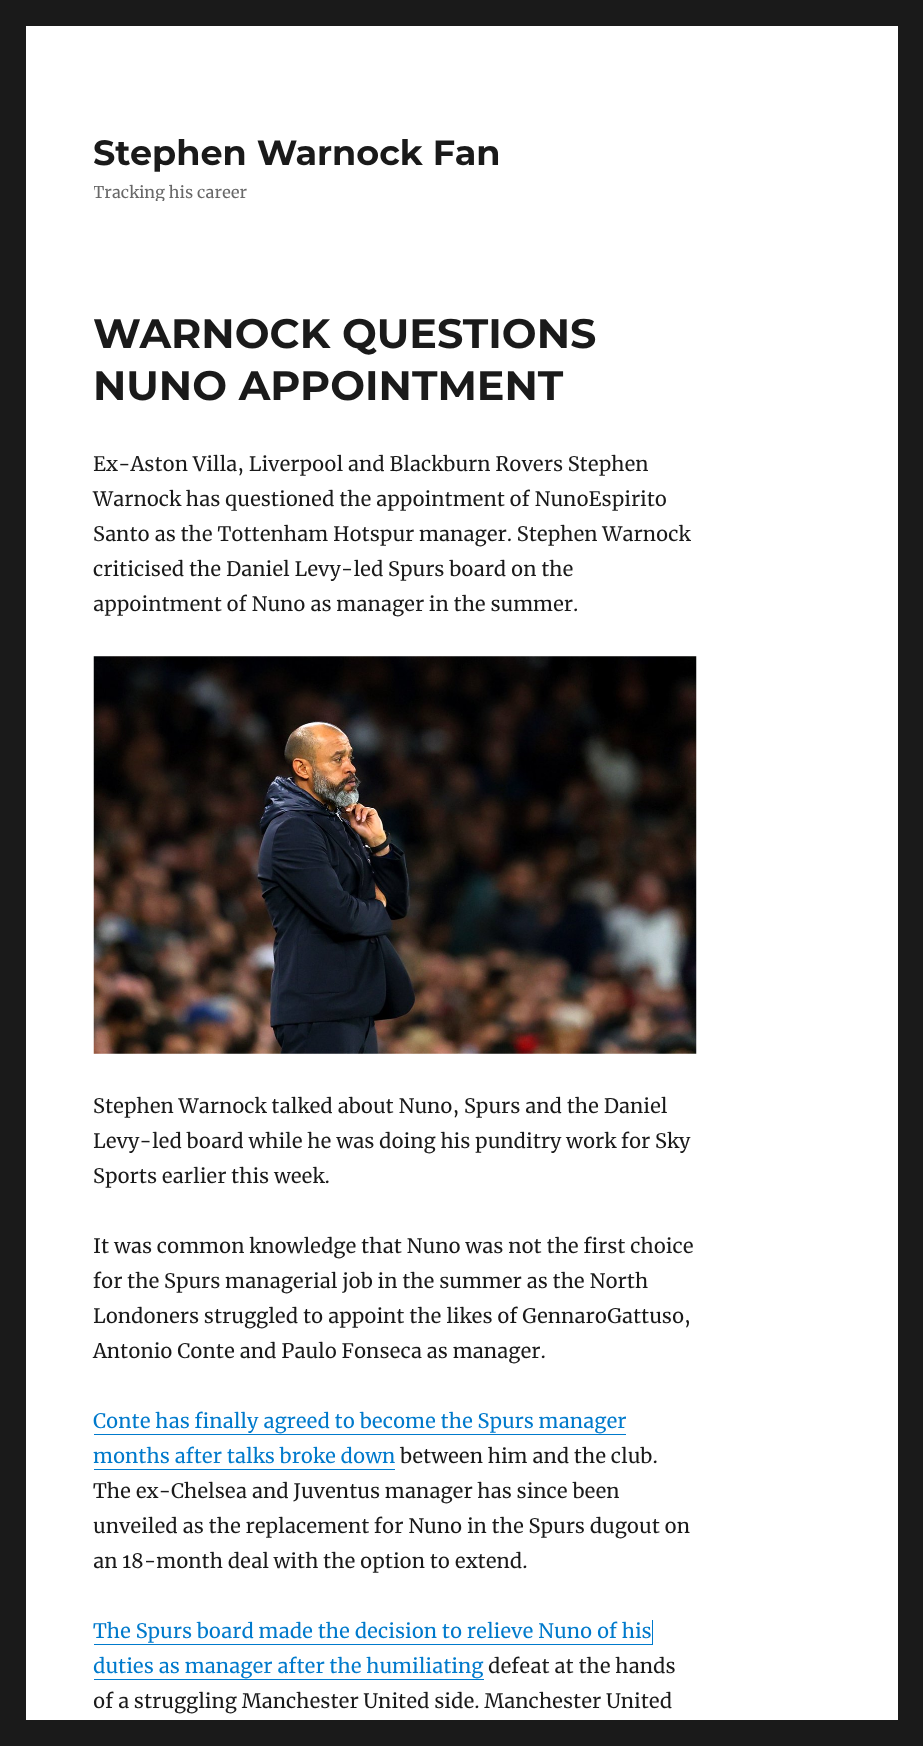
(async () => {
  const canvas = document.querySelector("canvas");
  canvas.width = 923;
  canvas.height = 1746;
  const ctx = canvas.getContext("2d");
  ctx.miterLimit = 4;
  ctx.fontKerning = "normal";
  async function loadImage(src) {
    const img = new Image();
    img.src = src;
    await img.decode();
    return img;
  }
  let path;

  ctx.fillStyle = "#1a1a1a";
  ctx.fillRect(0, 0, 923, 1746);
  ctx.fillStyle = "#ffffff";
  ctx.fillRect(26, 26, 872, 1694);
  ctx.drawImage(await loadImage("img/1.png"), 93, 656, 604, 398);
  ctx.fillStyle = "#007acc";
  ctx.fillRect(94, 1434, 532, 1);
  ctx.fillRect(94, 1469, 301, 1);
  path = new Path2D("M94 1644V1645H653V1620H652V1644Z");
  ctx.fill(path);
  path = new Path2D("M94 1679V1680H484V1655V1679Z");
  ctx.fill(path);
  ctx.font = "100 35px Montserrat";
  ctx.fillStyle = "#1a1a1a";
  ctx.fillText("Stephen Warnock Fan", 93, 165);
  ctx.save();
  ctx.beginPath();
  ctx.rect(94, 131, 407, 70);
  ctx.clip();
  ctx.font = "16.25px Merriweather";
  ctx.fillStyle = "#686868";
  ctx.fillText("Tracking his career", 93, 198);
  ctx.restore();
  ctx.font = "100 41.25px Montserrat";
  ctx.fillText("WARNOCK QUESTIONS", 93, 348);
  ctx.fillText("NUNO APPOINTMENT", 93, 400);
  ctx.font = "20px Merriweather";
  for (const [text, x, y] of [
    ["Ex-Aston Villa, Liverpool and Blackburn Rovers Stephen", 93, 471],
    ["Warnock has questioned the appointment of NunoEspirito", 93, 506],
    ["Santo as the Tottenham Hotspur manager. Stephen Warnock", 93, 541],
    ["criticised the Daniel Levy-led Spurs board on the", 93, 576],
    ["appointment of Nuno as manager in the summer.", 93, 611],
    ["Stephen Warnock talked about Nuno, Spurs and the Daniel", 93, 1113],
    ["Levy-led board while he was doing his punditry work for Sky", 93, 1148],
    ["Sports earlier this week.", 93, 1183],
    ["It was common knowledge that Nuno was not the first choice", 93, 1253],
    ["for the Spurs managerial job in the summer as the North", 93, 1288],
    ["Londoners struggled to appoint the likes of GennaroGattuso,", 93, 1323],
    ["Antonio Conte and Paulo Fonseca as manager.", 93, 1358],
  ]) {
    ctx.fillText(text, x, y);
  }
  ctx.fillStyle = "#007acc";
  ctx.fillText("Conte has finally agreed to become the Spurs manager", 93, 1428);
  ctx.fillText("months after talks broke down", 93, 1463);
  ctx.fillStyle = "#1a1a1a";
  for (const [text, x, y] of [
    ["between him and the club.", 400, 1463],
    ["The ex-Chelsea and Juventus manager has since been", 93, 1498],
    ["unveiled as the replacement for Nuno in the Spurs dugout on", 93, 1533],
    ["an 18-month deal with the option to extend.", 93, 1568],
  ]) {
    ctx.fillText(text, x, y);
  }
  ctx.fillStyle = "#007acc";
  ctx.fillText("The Spurs board made the decision to relieve Nuno of his", 93, 1638);
  ctx.fillText("duties as manager after the humiliating", 93, 1673);
  ctx.fillStyle = "#1a1a1a";
  ctx.fillText("defeat at the hands", 488, 1673);
  ctx.fillText("of a struggling Manchester United side. Manchester United", 93, 1708);
})();
